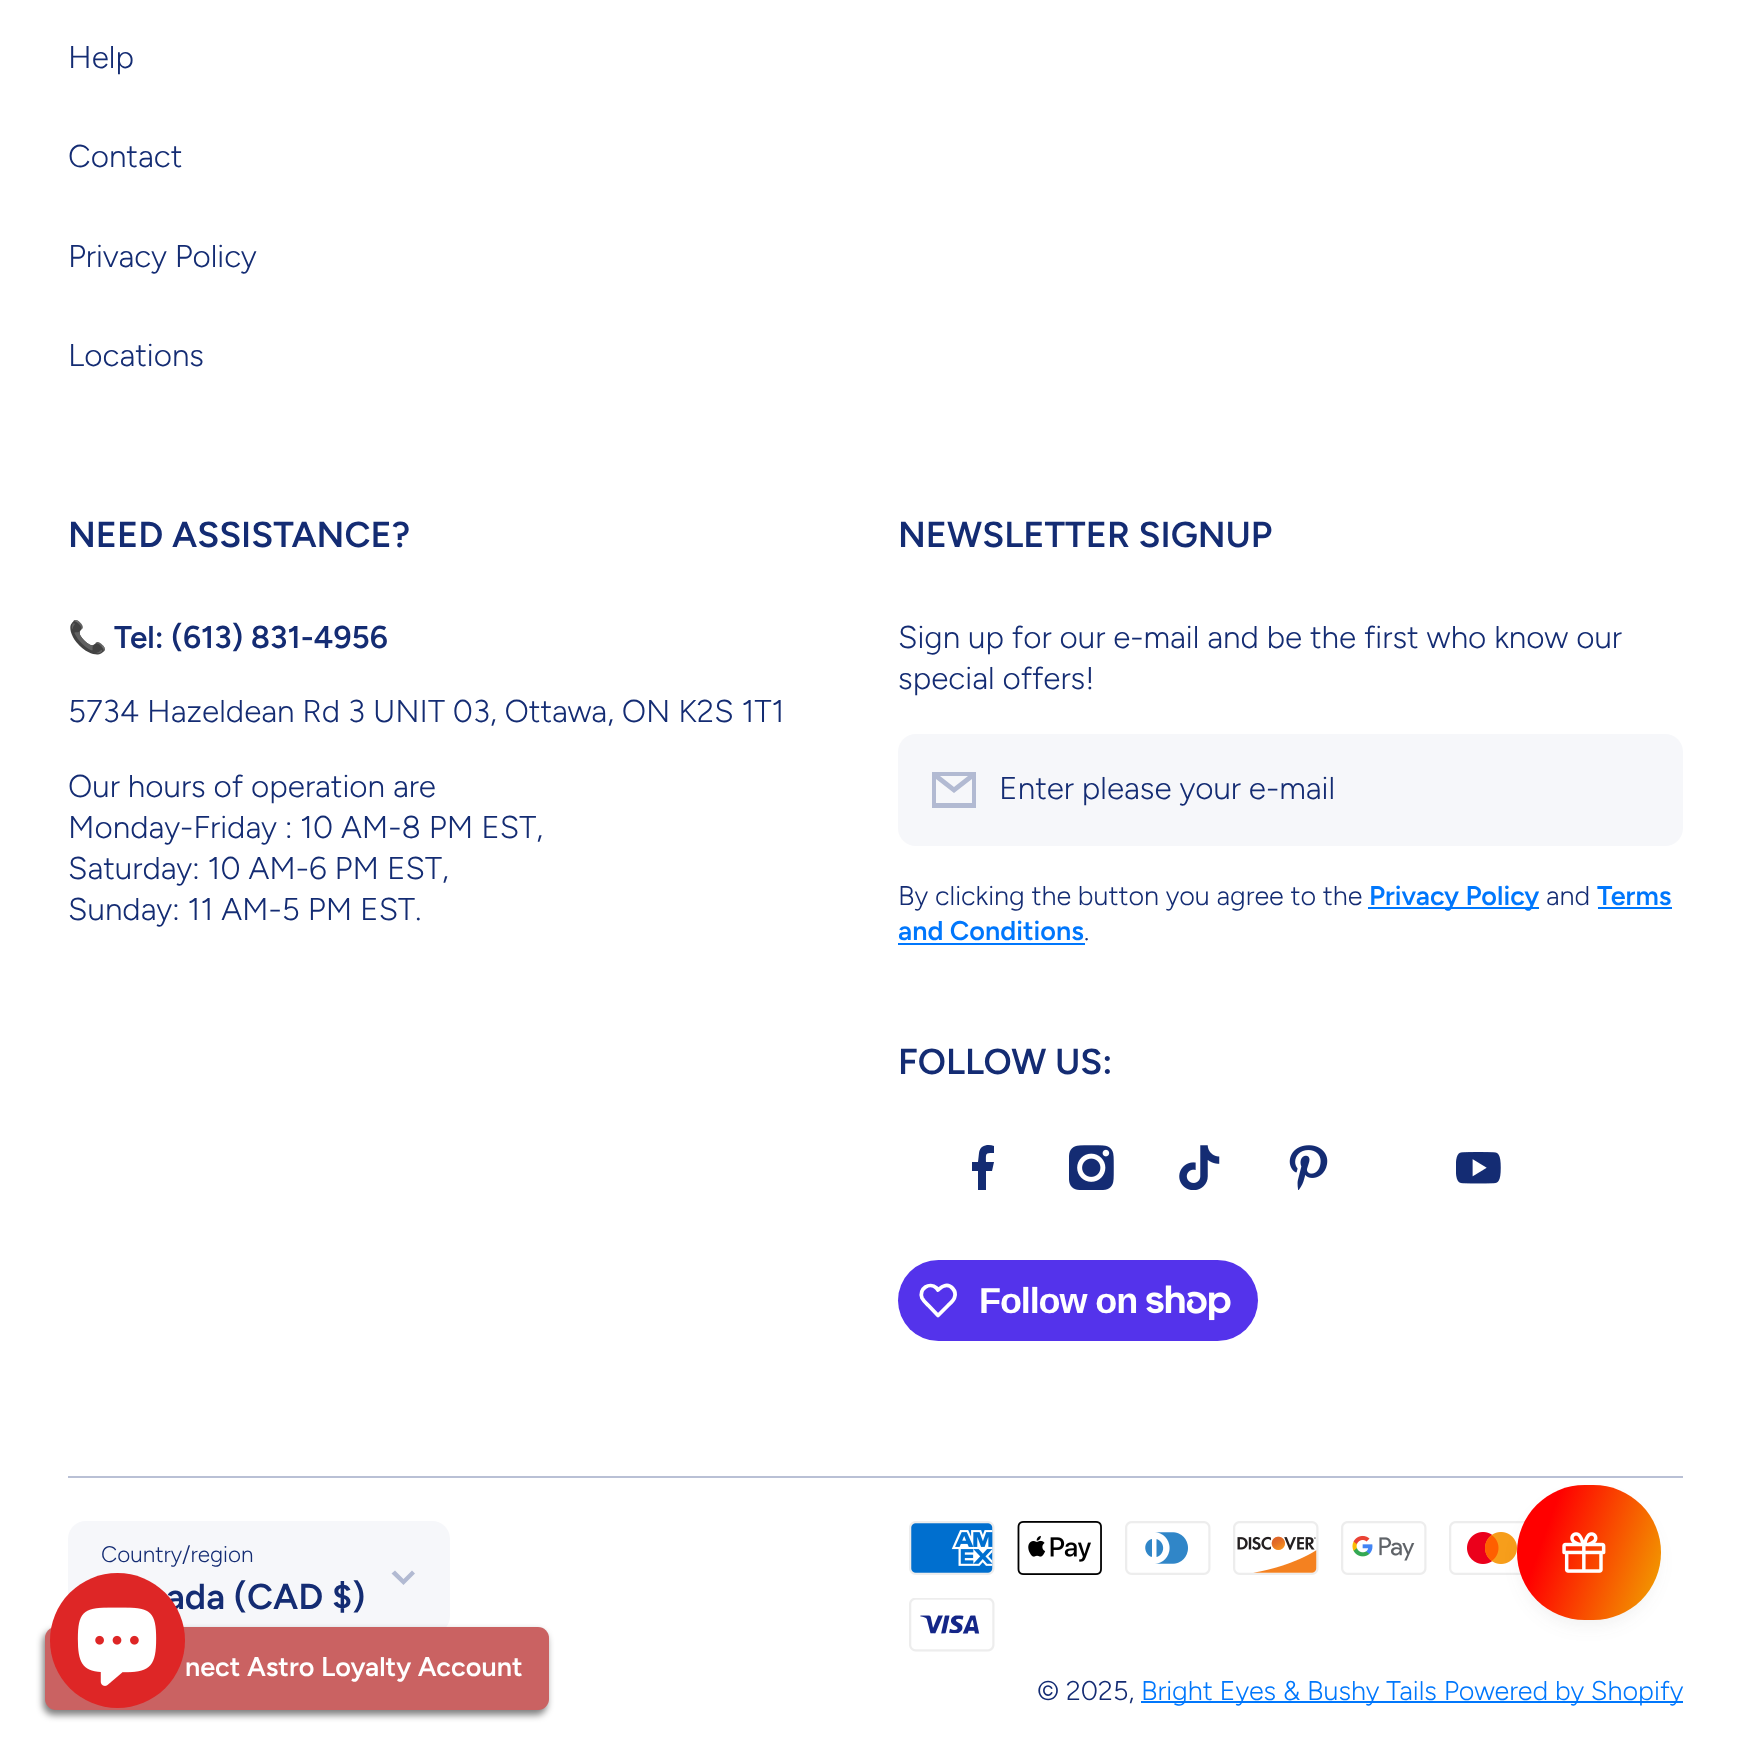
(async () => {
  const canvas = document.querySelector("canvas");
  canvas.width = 1749;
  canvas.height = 1753;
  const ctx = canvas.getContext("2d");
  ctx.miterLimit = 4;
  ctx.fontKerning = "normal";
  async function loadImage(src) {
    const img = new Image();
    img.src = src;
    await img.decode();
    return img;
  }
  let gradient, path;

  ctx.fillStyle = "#ffffff";
  ctx.fillRect(0, 0, 1749, 1753);
  ctx.fillStyle = "#f6f7fa";
  ctx.beginPath();
  ctx.roundRect(898, 734, 785, 112, 18);
  ctx.fill();
  ctx.fillStyle = "#b2bad2";
  path = new Path2D("M968 776H940L954 787ZM936 779V803H972V779L954 793ZM932 808V772H976V808Z");
  ctx.fill(path, "evenodd");
  for (const [x, y, w, h, color] of [
    [1368, 907, 171, 2, "#0077fc"],
    [1598, 907, 74, 2, "#0077fc"],
    [898, 943, 187, 2, "#0077fc"],
  ]) {
    ctx.fillStyle = color;
    ctx.fillRect(x, y, w, h);
  }
  ctx.fillStyle = "#142c73";
  path = new Path2D("M978 1190V1171H972V1162H978L979 1153C980 1145 988 1144 994 1146V1153C985 1153 986 1153 986 1162H994L992 1171H986V1190Z");
  ctx.fill(path);
  ctx.drawImage(await loadImage("img/1.png"), 1069, 1145, 45, 45);
  ctx.drawImage(await loadImage("img/2.png"), 1179, 1145, 41, 45);
  ctx.drawImage(await loadImage("img/3.png"), 1289, 1145, 39, 45);
  ctx.drawImage(await loadImage("img/4.png"), 1456, 1152, 45, 32);
  ctx.fillStyle = "#5433eb";
  ctx.beginPath();
  ctx.roundRect(898, 1260, 360, 81, 40.5);
  ctx.fill();
  path = new Path2D("M936.5 1288L938 1290C940 1288.5 941.5 1286.5 944 1286C950.5 1283.5 957 1291 954.5 1297.5C953.5 1301 950 1303.5 948 1305.5L938 1315.5L928.5 1305.5C926.5 1303.5 923.5 1301 922 1298C918.5 1289 929.5 1281.5 936.5 1288Z");
  ctx.strokeStyle = "#ffffff";
  ctx.lineWidth = 3.8;
  ctx.lineJoin = "round";
  ctx.stroke(path);
  ctx.drawImage(await loadImage("img/5.png"), 1146, 1285, 85, 36);
  ctx.fillStyle = "#b9c0d5";
  ctx.fillRect(68, 1476, 1615, 2);
  ctx.fillStyle = "#f6f7fa";
  ctx.beginPath();
  ctx.roundRect(68, 1521, 382, 113, 18);
  ctx.fill();
  ctx.fillStyle = "#b2bad2";
  path = new Path2D("M403.5 1579L395 1570.5L391.5 1573.5L403.5 1585L415 1573.5L412 1570.5Z");
  ctx.fill(path, "evenodd");
  ctx.drawImage(await loadImage("img/6.png"), 909, 1521, 86, 54);
  ctx.drawImage(await loadImage("img/7.png"), 1017, 1521, 85, 54);
  ctx.drawImage(await loadImage("img/8.png"), 1125, 1521, 86, 54);
  ctx.drawImage(await loadImage("img/9.png"), 1233, 1521, 86, 54);
  ctx.drawImage(await loadImage("img/10.png"), 1341, 1521, 86, 54);
  ctx.drawImage(await loadImage("img/11.png"), 1449, 1521, 76, 54);
  ctx.drawImage(await loadImage("img/12.png"), 909, 1598, 86, 54);
  ctx.fillStyle = "#0077fc";
  ctx.fillRect(1141, 1701, 542, 2);
  ctx.fillStyle = "rgba(0, 0, 0, 0.5)";
  ctx.filter = "blur(3.5px)";
  ctx.beginPath();
  ctx.roundRect(43, 1631, 504, 84, 11);
  ctx.fill();
  ctx.filter = "none";
  ctx.fillStyle = "#ca6262";
  ctx.beginPath();
  ctx.roundRect(45, 1627, 504, 83, 11);
  ctx.fill();
  ctx.fillStyle = "rgba(68, 68, 68, 0.08)";
  ctx.filter = "blur(9px)";
  ctx.beginPath();
  ctx.roundRect(1521, 1499, 135, 126, 63);
  ctx.fill();
  ctx.filter = "none";
  gradient = ctx.createLinearGradient(1503, 1522, 1742, 1607);
  gradient.addColorStop(0.17, "#ff0000");
  gradient.addColorStop(1, "#e9ff00");
  ctx.fillStyle = gradient;
  ctx.beginPath();
  ctx.roundRect(1517, 1485, 144, 135, 67.5);
  ctx.fill();
  ctx.drawImage(await loadImage("img/14.png"), 1562, 1532, 44, 41);
  ctx.font = "300 31.5px Figtree";
  ctx.fillStyle = "#142c73";
  for (const [text, x, y] of [
    ["Help", 68, 68],
    ["Contact", 68, 167],
    ["Privacy Policy", 68, 267],
    ["Locations", 68, 366],
  ]) {
    ctx.fillText(text, x, y);
  }
  ctx.font = "600 36px Figtree";
  ctx.fillText("NEED ASSISTANCE?", 68, 547);
  ctx.font = "31.5px Noto Color Emoji";
  ctx.fillText("📞", 68, 648);
  ctx.font = "600 31.5px Figtree";
  ctx.fillText("Tel: (613) 831-4956", 114, 648);
  ctx.font = "300 31.5px Figtree";
  for (const [text, x, y] of [
    ["5734 Hazeldean Rd 3 UNIT 03, Ottawa, ON K2S 1T1", 68, 722],
    ["Our hours of operation are", 68, 797],
    ["Monday-Friday : 10 AM-8 PM EST,", 68, 838],
    ["Saturday: 10 AM-6 PM EST,", 68, 879],
    ["Sunday: 11 AM-5 PM EST.", 68, 920],
  ]) {
    ctx.fillText(text, x, y);
  }
  ctx.font = "600 36px Figtree";
  ctx.fillText("NEWSLETTER SIGNUP", 898, 547);
  ctx.font = "300 31.5px Figtree";
  for (const [text, x, y] of [
    ["Sign up for our e-mail and be the first who know our", 898, 648],
    ["special offers!", 898, 689],
    ["Enter please your e-mail", 999, 799],
  ]) {
    ctx.fillText(text, x, y);
  }
  ctx.font = "300 27px Figtree";
  ctx.fillText("By clicking the button you agree to the", 898, 905);
  ctx.font = "600 27px Figtree";
  ctx.fillStyle = "#0077fc";
  ctx.fillText("Privacy Policy", 1369, 905);
  ctx.font = "300 27px Figtree";
  ctx.fillStyle = "#142c73";
  ctx.fillText("and", 1546, 905);
  ctx.font = "600 27px Figtree";
  ctx.fillStyle = "#0077fc";
  ctx.fillText("Terms", 1597, 905);
  ctx.fillText("and Conditions", 898, 940);
  ctx.font = "300 27px Figtree";
  ctx.fillStyle = "#142c73";
  ctx.fillText(".", 1084, 940);
  ctx.font = "600 36px Figtree";
  ctx.fillText("FOLLOW US:", 898, 1074);
  ctx.letterSpacing = "-1.1px";
  ctx.font = "bold 36px Liberation Sans";
  ctx.fillStyle = "#ffffff";
  ctx.fillText("Follow on", 979, 1313);
  ctx.letterSpacing = "0px";
  ctx.font = "300 22.5px Figtree";
  ctx.fillStyle = "#142c73";
  ctx.fillText("Country/region", 101, 1562);
  ctx.font = "600 36px Figtree";
  ctx.fillText("ada (CAD $)", 166, 1609);
  ctx.font = "300 27px Figtree";
  ctx.fillText("© 2025,", 1037, 1700);
  ctx.fillStyle = "#0077fc";
  ctx.fillText("Bright Eyes & Bushy Tails Powered by Shopify", 1141, 1700);
  ctx.fillStyle = "#de2626";
  ctx.beginPath();
  ctx.arc(117.5, 1640.5, 67.5, 0, Math.PI * 2);
  ctx.fill();
  ctx.drawImage(await loadImage("img/13.png"), 77, 1607, 80, 79);
  ctx.font = "600 27px Figtree";
  ctx.fillStyle = "#ffffff";
  ctx.fillText("nect Astro Loyalty Account", 185, 1676);
})();
